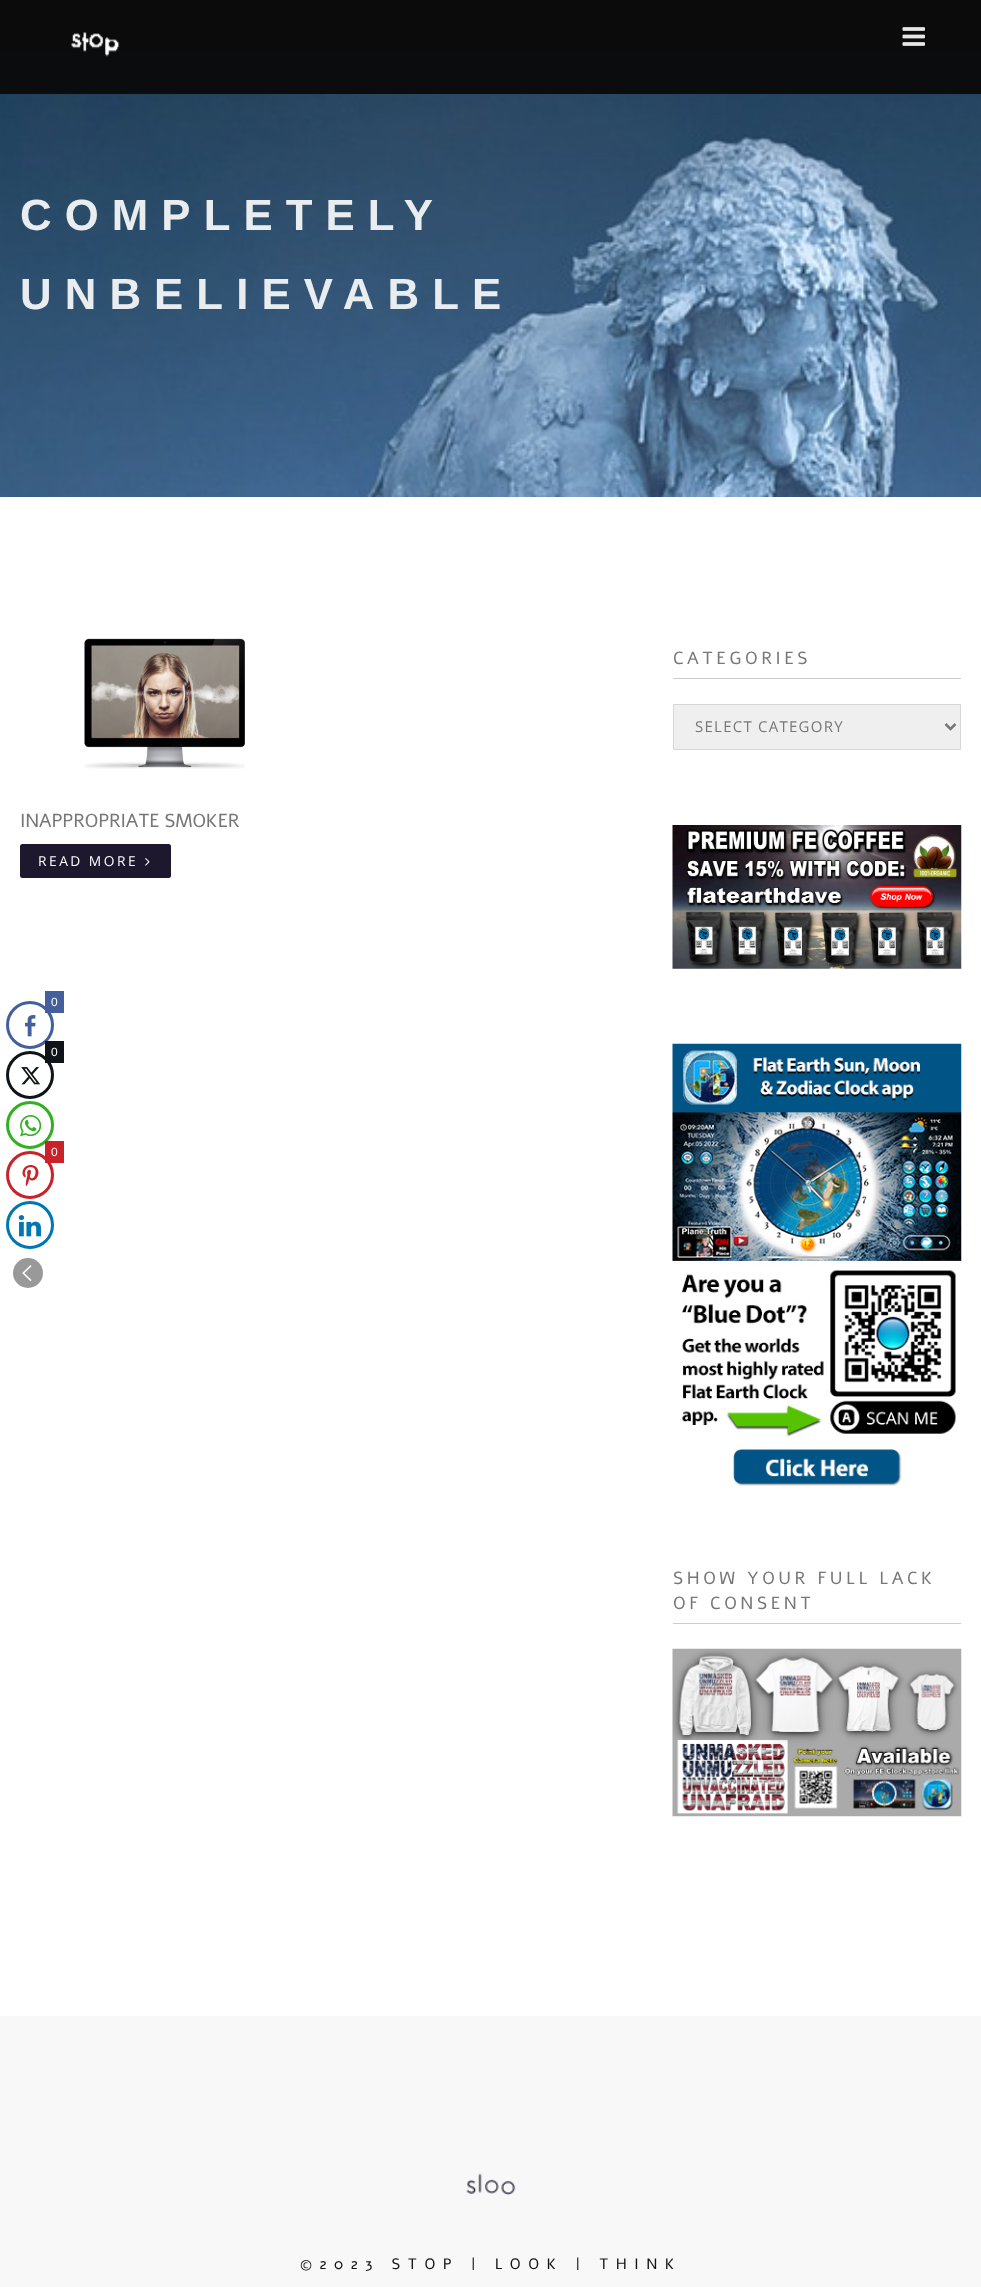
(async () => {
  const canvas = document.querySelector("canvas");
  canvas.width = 981;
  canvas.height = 2287;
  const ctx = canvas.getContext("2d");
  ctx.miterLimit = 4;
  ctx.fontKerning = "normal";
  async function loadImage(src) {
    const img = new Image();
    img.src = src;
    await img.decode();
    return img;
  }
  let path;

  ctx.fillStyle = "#ffffff";
  ctx.fillRect(0, 0, 981, 2287);
  for (const [x, y, w, h, color] of [
    [0, 0, 981, 50, "#333333"],
    [20, 0, 1, 50, "#414141"],
    [91, 0, 1, 50, "#414141"],
    [218, 0, 1, 50, "#414141"],
    [330, 0, 1, 50, "#414141"],
    [390, 0, 1, 50, "#414141"],
    [540, 0, 1, 50, "#414141"],
    [475, 0, 1, 50, "#414141"],
  ]) {
    ctx.fillStyle = color;
    ctx.fillRect(x, y, w, h);
  }
  ctx.drawImage(await loadImage("img/3.png"), 0, 50, 981, 447);
  ctx.fillStyle = "rgba(10, 10, 10, 0.95)";
  ctx.fillRect(0, 0, 981, 94);
  ctx.drawImage(await loadImage("img/1.png"), 71, 32, 49, 25);
  ctx.drawImage(await loadImage("img/2.png"), 902, 27, 23, 19);
  ctx.drawImage(await loadImage("img/4.png"), 84, 638, 161, 131);
  ctx.fillStyle = "#1d182d";
  ctx.beginPath();
  ctx.roundRect(20, 844, 151, 34, 2.5);
  ctx.fill();
  ctx.drawImage(await loadImage("img/5.png"), 145, 858, 5, 8);
  ctx.fillStyle = "#cccccc";
  ctx.fillRect(673, 678, 288, 1);
  ctx.fillStyle = "#efefef";
  ctx.beginPath();
  ctx.rect(673.5, 704.5, 287, 45);
  ctx.fill();
  ctx.strokeStyle = "#d7d7d7";
  ctx.stroke();
  path = new Path2D("M945.5 724L950.5 729L955.5 724");
  ctx.strokeStyle = "#777777";
  ctx.lineWidth = 2.5;
  ctx.stroke(path);
  ctx.drawImage(await loadImage("img/6.png"), 672, 825, 290, 144);
  ctx.drawImage(await loadImage("img/7.png"), 672, 1043, 290, 443);
  ctx.fillStyle = "#cccccc";
  ctx.fillRect(673, 1623, 288, 1);
  ctx.drawImage(await loadImage("img/8.png"), 672, 1648, 290, 169);
  ctx.fillStyle = "#f8f8f8";
  ctx.fillRect(0, 2016, 981, 271);
  ctx.drawImage(await loadImage("img/9.png"), 466, 2173, 50, 23);
  ctx.beginPath();
  ctx.arc(30, 1025, 22.5, 0, Math.PI * 2);
  ctx.strokeStyle = "#43609c";
  ctx.lineWidth = 3;
  ctx.stroke();
  ctx.fillStyle = "#43609c";
  ctx.fillRect(45, 991, 19, 22);
  ctx.drawImage(await loadImage("img/10.png"), 25, 1015, 11, 22);
  ctx.beginPath();
  ctx.arc(30, 1075, 22.5, 0, Math.PI * 2);
  ctx.strokeStyle = "#0f1419";
  ctx.stroke();
  ctx.fillStyle = "#0f1419";
  ctx.fillRect(45, 1041, 19, 22);
  ctx.drawImage(await loadImage("img/11.png"), 21, 1067, 20, 18);
  ctx.beginPath();
  ctx.arc(30, 1125, 22.5, 0, Math.PI * 2);
  ctx.strokeStyle = "#34af23";
  ctx.stroke();
  ctx.drawImage(await loadImage("img/12.png"), 20, 1115, 22, 22);
  ctx.beginPath();
  ctx.arc(30, 1175, 22.5, 0, Math.PI * 2);
  ctx.strokeStyle = "#c92228";
  ctx.stroke();
  ctx.fillStyle = "#c92228";
  ctx.fillRect(45, 1141, 19, 22);
  ctx.drawImage(await loadImage("img/13.png"), 22, 1165, 17, 22);
  ctx.beginPath();
  ctx.arc(30, 1225, 22.5, 0, Math.PI * 2);
  ctx.strokeStyle = "#0077b5";
  ctx.stroke();
  ctx.drawImage(await loadImage("img/14.png"), 18, 1215, 23, 22);
  ctx.fillStyle = "#999999";
  ctx.beginPath();
  ctx.arc(28, 1273, 15, 0, Math.PI * 2);
  ctx.fill();
  ctx.drawImage(await loadImage("img/15.png"), 22, 1265, 10, 16);
  ctx.letterSpacing = "13.1px";
  ctx.font = "bold 43.75px Liberation Sans";
  ctx.fillStyle = "#eaedf0";
  ctx.fillText("COMPLETELY", 20, 230);
  ctx.fillText("UNBELIEVABLE", 20, 309);
  ctx.letterSpacing = "-0.2px";
  ctx.font = "18.75px Alef";
  ctx.fillStyle = "#777777";
  ctx.fillText("INAPPROPRIATE SMOKER", 20, 827);
  ctx.letterSpacing = "2.5px";
  ctx.font = "13.75px Open Sans";
  ctx.fillStyle = "#ffffff";
  ctx.fillText("READ MORE", 38, 866);
  ctx.letterSpacing = "3.5px";
  ctx.font = "17.5px Alef";
  ctx.fillStyle = "#777777";
  ctx.fillText("CATEGORIES", 673, 664);
  ctx.letterSpacing = "1.25px";
  ctx.font = "15px Open Sans";
  ctx.fillText("SELECT CATEGORY", 695, 732);
  ctx.letterSpacing = "3.5px";
  ctx.font = "17.5px Alef";
  ctx.fillText("SHOW YOUR FULL LACK", 673, 1584);
  ctx.fillText("OF CONSENT", 673, 1609);
  ctx.letterSpacing = "7.5px";
  ctx.font = "15px Alef";
  ctx.fillStyle = "#111111";
  ctx.fillText("©2023 STOP | LOOK | THINK", 300, 2269);
  ctx.letterSpacing = "0px";
  ctx.font = "12px Liberation Sans";
  ctx.fillStyle = "#ffffff";
  for (const [text, x, y] of [
    ["0", 51, 1006],
    ["0", 51, 1056],
    ["0", 51, 1156],
  ]) {
    ctx.fillText(text, x, y);
  }
})();
